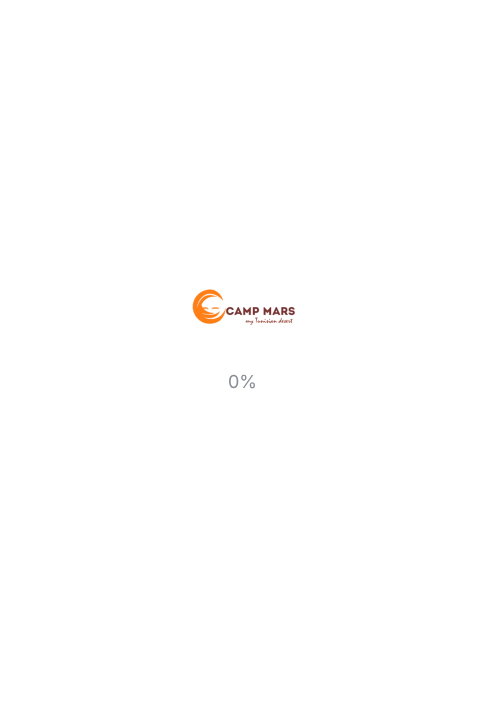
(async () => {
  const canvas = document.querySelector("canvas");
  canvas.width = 485;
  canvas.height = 716;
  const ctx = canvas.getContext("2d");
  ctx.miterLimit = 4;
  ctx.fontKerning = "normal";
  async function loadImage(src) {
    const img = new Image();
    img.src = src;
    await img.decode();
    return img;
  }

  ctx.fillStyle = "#ffffff";
  ctx.fillRect(0, 0, 485, 716);
  ctx.drawImage(await loadImage("img/1.png"), 192, 289, 103, 36);
  ctx.font = "18px Inter";
  ctx.fillStyle = "#898d96";
  ctx.fillText("0%", 228, 388);
})();
